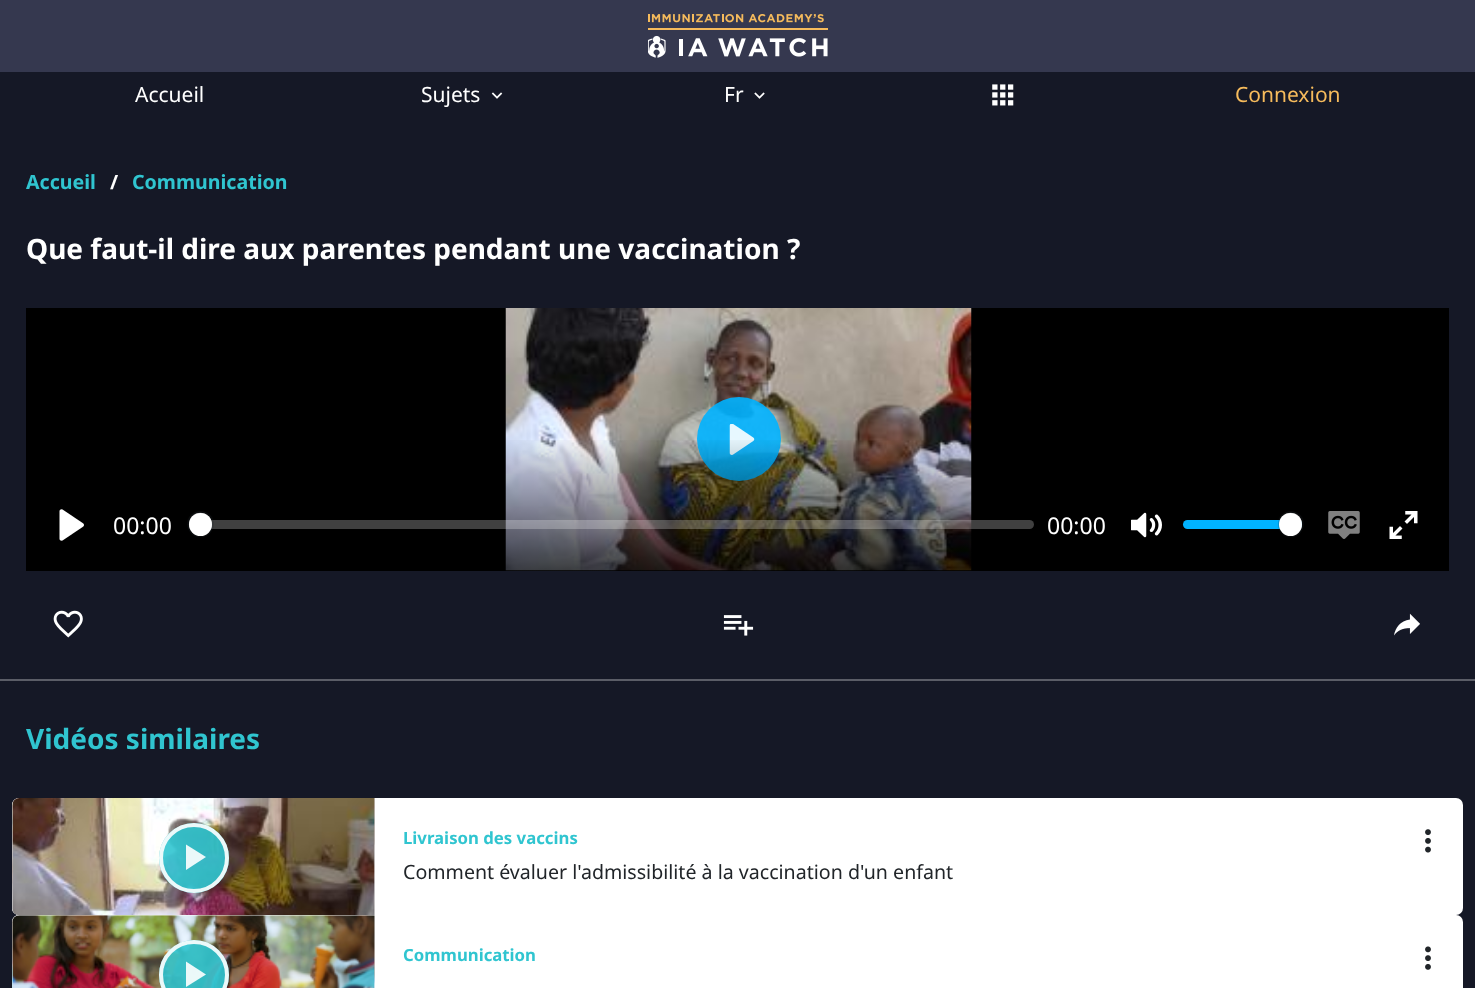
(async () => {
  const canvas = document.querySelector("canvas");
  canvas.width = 1475;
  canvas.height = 988;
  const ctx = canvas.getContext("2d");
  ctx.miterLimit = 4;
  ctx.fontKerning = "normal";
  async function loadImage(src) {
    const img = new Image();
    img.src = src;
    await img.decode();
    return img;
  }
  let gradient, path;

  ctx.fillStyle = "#151826";
  ctx.fillRect(0, 0, 1475, 988);
  ctx.fillStyle = "#35384f";
  ctx.fillRect(0, 0, 1475, 72);
  ctx.drawImage(await loadImage("img/1.png"), 648, 14, 180, 44);
  ctx.drawImage(await loadImage("img/2.png"), 491, 92, 12, 7);
  ctx.drawImage(await loadImage("img/3.png"), 754, 92, 11, 7);
  ctx.drawImage(await loadImage("img/4.png"), 992, 84, 22, 22);
  ctx.fillStyle = "#000000";
  ctx.fillRect(26, 308, 1423, 263);
  ctx.drawImage(await loadImage("img/5.png"), 187, 308, 1117, 263);
  ctx.fillStyle = "rgba(0, 179, 255, 0.9)";
  ctx.beginPath();
  ctx.arc(739, 439, 42, 0, Math.PI * 2);
  ctx.fill();
  ctx.drawImage(await loadImage("img/6.png"), 729, 424, 26, 31);
  gradient = ctx.createLinearGradient(738, 436, 738, 571);
  gradient.addColorStop(0, "rgba(0, 0, 0, 0)");
  gradient.addColorStop(1, "rgba(0, 0, 0, 0.75)");
  ctx.fillStyle = gradient;
  ctx.fillRect(187, 440, 1117, 131);
  ctx.drawImage(await loadImage("img/7.png"), 59, 509, 25, 32);
  ctx.fillStyle = "rgba(255, 255, 255, 0.25)";
  ctx.beginPath();
  ctx.roundRect(189, 520, 845, 9, 4.5);
  ctx.fill();
  ctx.beginPath();
  ctx.roundRect(188, 512, 25, 24, 12);
  ctx.strokeStyle = "rgba(35, 40, 47, 0.2)";
  ctx.lineWidth = 2;
  ctx.stroke();
  ctx.fillStyle = "rgba(35, 40, 47, 0.15)";
  ctx.filter = "blur(1px)";
  ctx.beginPath();
  ctx.roundRect(189, 515, 23, 22, 11);
  ctx.fill();
  ctx.filter = "none";
  ctx.fillStyle = "#ffffff";
  ctx.beginPath();
  ctx.arc(200.5, 524.5, 11.5, 0, Math.PI * 2);
  ctx.fill();
  ctx.drawImage(await loadImage("img/8.png"), 1131, 512, 31, 26);
  ctx.fillStyle = "#00b3ff";
  ctx.beginPath();
  ctx.roundRect(1183, 520, 119, 9, 4.5);
  ctx.fill();
  ctx.beginPath();
  ctx.arc(1291, 524, 12, 0, Math.PI * 2);
  ctx.stroke();
  ctx.fillStyle = "rgba(35, 40, 47, 0.15)";
  ctx.filter = "blur(1px)";
  ctx.beginPath();
  ctx.roundRect(1279, 515, 23, 22, 11);
  ctx.fill();
  ctx.filter = "none";
  ctx.fillStyle = "#ffffff";
  ctx.beginPath();
  ctx.arc(1290.5, 524.5, 11.5, 0, Math.PI * 2);
  ctx.fill();
  ctx.drawImage(await loadImage("img/9.png"), 1328, 511, 32, 28);
  ctx.drawImage(await loadImage("img/10.png"), 1389, 511, 29, 28);
  ctx.drawImage(await loadImage("img/11.png"), 53, 610, 30, 28);
  ctx.drawImage(await loadImage("img/12.png"), 723, 615, 31, 21);
  ctx.drawImage(await loadImage("img/13.png"), 1394, 613, 26, 23);
  ctx.fillStyle = "#5b5d67";
  ctx.fillRect(0, 679, 1475, 2);
  ctx.fillStyle = "#ffffff";
  ctx.beginPath();
  ctx.roundRect(12, 798, 1451, 117, 7);
  ctx.fill();
  ctx.beginPath();
  ctx.roundRect(12, 798, 363, 117, [7, 0, 0, 7]);
  ctx.fill();
  ctx.drawImage(await loadImage("img/14.png"), 12, 798, 363, 118);
  ctx.fillStyle = "rgba(48, 197, 208, 0.9)";
  ctx.beginPath();
  ctx.arc(194, 858, 35, 0, Math.PI * 2);
  ctx.fill();
  ctx.beginPath();
  ctx.arc(194, 858, 33, 0, Math.PI * 2);
  ctx.strokeStyle = "rgba(255, 255, 255, 0.9)";
  ctx.lineWidth = 4;
  ctx.stroke();
  ctx.fillStyle = "rgba(255, 255, 255, 0.9)";
  path = new Path2D("M186 844.5V870L206 857Z");
  ctx.fill(path);
  ctx.drawImage(await loadImage("img/15.png"), 1425, 829, 6, 24);
  ctx.fillStyle = "#ffffff";
  ctx.beginPath();
  ctx.roundRect(12, 915, 1451, 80, 7);
  ctx.fill();
  path = new Path2D("M19 915H375V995H19C15 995 12 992 12 988V922C12 918 15 915 19 915Z");
  ctx.fill(path);
  ctx.drawImage(await loadImage("img/16.png"), 12, 915, 363, 73);
  ctx.fillStyle = "rgba(48, 197, 208, 0.9)";
  ctx.beginPath();
  ctx.arc(194, 975, 35, 0, Math.PI * 2);
  ctx.fill();
  ctx.beginPath();
  ctx.arc(194, 975, 33, 0, Math.PI * 2);
  ctx.stroke();
  ctx.fillStyle = "rgba(255, 255, 255, 0.9)";
  path = new Path2D("M186 961.5V987L206 974.5Z");
  ctx.fill(path);
  ctx.drawImage(await loadImage("img/17.png"), 1425, 946, 6, 24);
  ctx.font = "21px Noto Sans";
  ctx.fillStyle = "#ffffff";
  for (const [text, x, y] of [
    ["Accueil", 135, 102],
    ["Sujets", 421, 102],
    ["Fr", 724, 102],
  ]) {
    ctx.fillText(text, x, y);
  }
  ctx.fillStyle = "#f6bb5c";
  ctx.fillText("Connexion", 1235, 102);
  ctx.font = "bold 19.6px Noto Sans";
  ctx.fillStyle = "#30c5d0";
  ctx.fillText("Accueil", 26, 189);
  ctx.fillStyle = "#ffffff";
  ctx.fillText("/", 110, 189);
  ctx.fillStyle = "#30c5d0";
  ctx.fillText("Communication", 132, 189);
  ctx.font = "bold 28px Noto Sans";
  ctx.fillStyle = "#ffffff";
  ctx.fillText("Que faut-il dire aux parentes pendant une vaccination ?", 26, 259);
  ctx.font = "23px Noto Sans";
  ctx.fillText("00:00", 113, 534);
  ctx.fillText("00:00", 1047, 534);
  ctx.font = "bold 28px Noto Sans";
  ctx.fillStyle = "#30c5d0";
  ctx.fillText("Vidéos similaires", 26, 749);
  ctx.font = "bold 16.75px Noto Sans";
  ctx.fillText("Livraison des vaccins", 403, 844);
  ctx.font = "19.6px Noto Sans";
  ctx.fillStyle = "#212529";
  ctx.fillText("Comment évaluer l'admissibilité à la vaccination d'un enfant", 403, 879);
  ctx.font = "bold 16.75px Noto Sans";
  ctx.fillStyle = "#30c5d0";
  ctx.fillText("Communication", 403, 961);
})();
